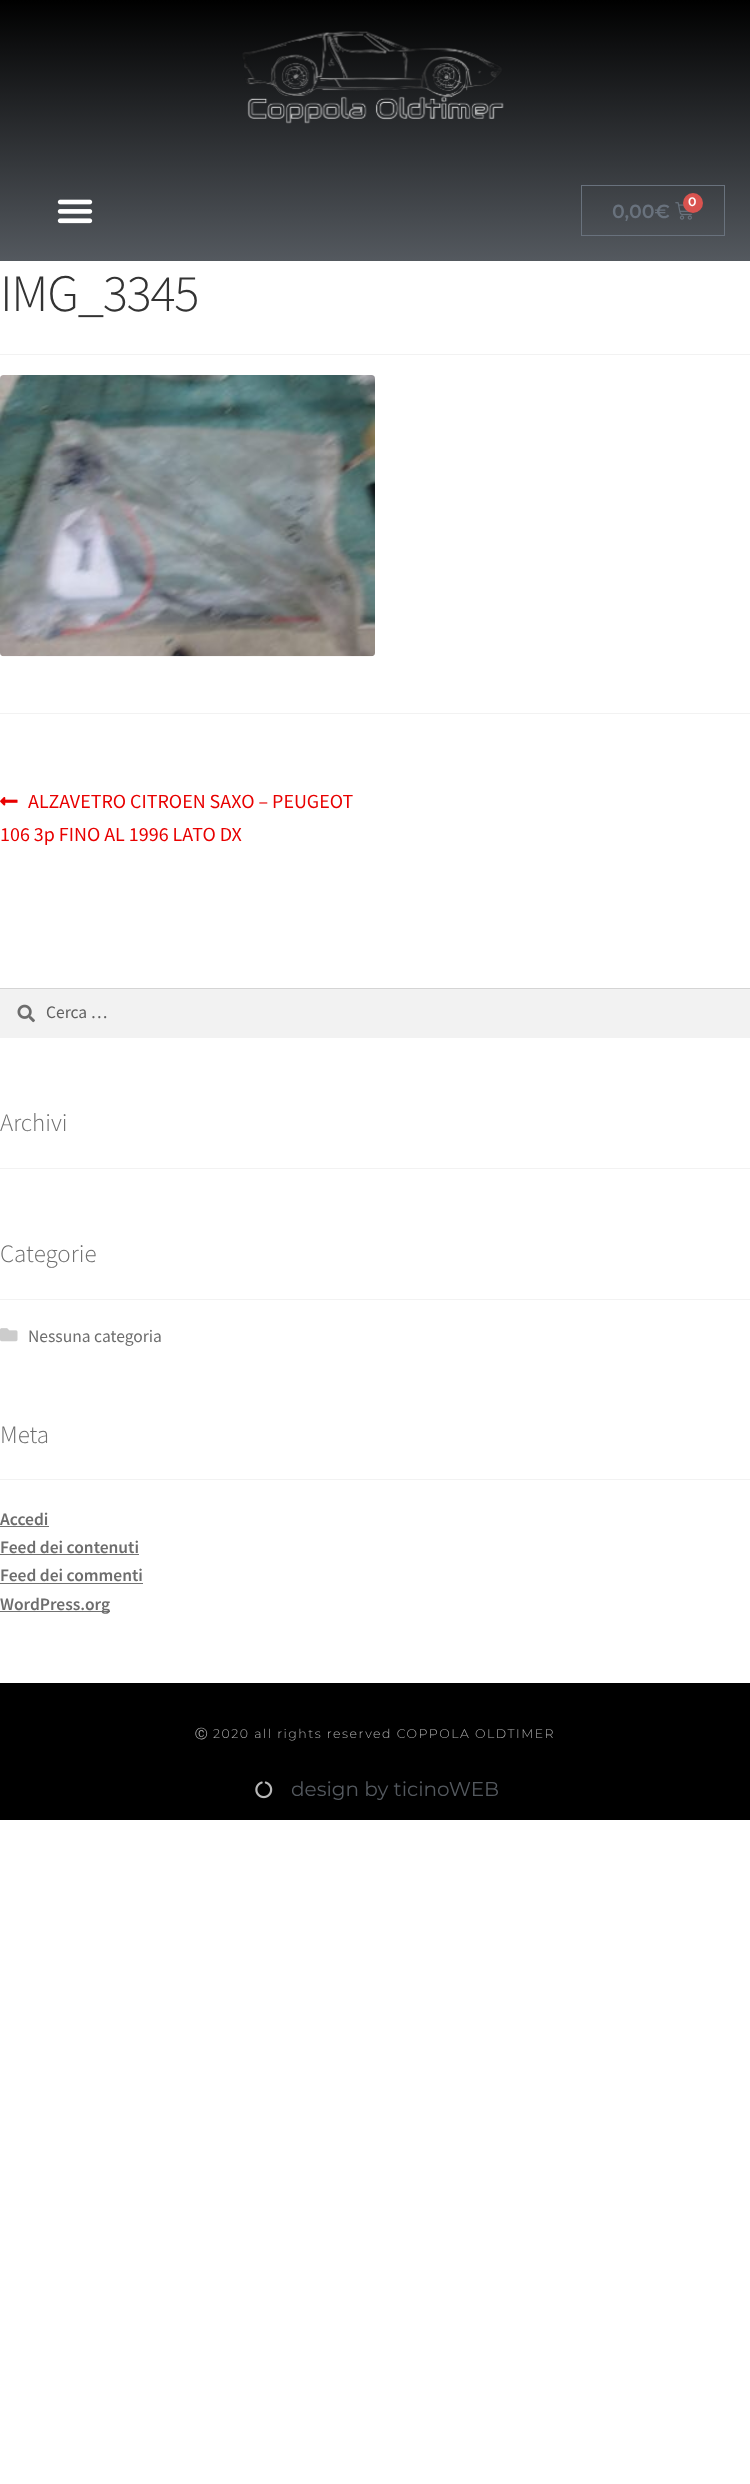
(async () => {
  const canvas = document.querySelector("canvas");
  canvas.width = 750;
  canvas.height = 2484;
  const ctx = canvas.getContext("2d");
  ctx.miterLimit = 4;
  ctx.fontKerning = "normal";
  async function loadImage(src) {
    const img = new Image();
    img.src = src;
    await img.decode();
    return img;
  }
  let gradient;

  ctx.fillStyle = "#ffffff";
  ctx.fillRect(0, 0, 750, 2484);
  gradient = ctx.createLinearGradient(375, 0, 375, 261);
  gradient.addColorStop(0, "#000000");
  gradient.addColorStop(1, "#54595f");
  ctx.fillStyle = gradient;
  ctx.fillRect(0, 0, 750, 261);
  ctx.drawImage(await loadImage("img/1.png"), 242, 31, 262, 93);
  ctx.drawImage(await loadImage("img/2.png"), 57, 199, 36, 25);
  ctx.strokeStyle = "#69727d";
  ctx.strokeRect(581.5, 185.5, 143, 50);
  ctx.drawImage(await loadImage("img/3.png"), 675, 202, 17, 18);
  ctx.fillStyle = "#d9534f";
  ctx.beginPath();
  ctx.arc(693, 203, 10, 0, Math.PI * 2);
  ctx.fill();
  ctx.fillStyle = "#f2f2f2";
  ctx.fillRect(0, 354, 750, 1);
  ctx.drawImage(await loadImage("img/4.png"), 0, 375, 375, 282);
  ctx.fillRect(0, 713, 750, 1);
  ctx.drawImage(await loadImage("img/5.png"), 0, 797, 18, 9);
  ctx.fillRect(0, 989, 750, 49);
  ctx.drawImage(await loadImage("img/6.png"), 17, 1004, 18, 19);
  for (const [x, y, w, h, color] of [
    [0, 988, 750, 1, "#d4d4d4"],
    [0, 1168, 750, 1, "#f2f2f2"],
    [0, 1299, 750, 1, "#f2f2f2"],
  ]) {
    ctx.fillStyle = color;
    ctx.fillRect(x, y, w, h);
  }
  ctx.drawImage(await loadImage("img/7.png"), 0, 1328, 18, 14);
  for (const [x, y, w, h, color] of [
    [0, 1479, 750, 1, "#f2f2f2"],
    [0, 1526, 49, 1, "#727272"],
    [0, 1554, 139, 1, "#727272"],
    [0, 1583, 143, 1, "#727272"],
    [0, 1611, 110, 1, "#727272"],
    [0, 1683, 750, 137, "#000000"],
  ]) {
    ctx.fillStyle = color;
    ctx.fillRect(x, y, w, h);
  }
  ctx.drawImage(await loadImage("img/8.png"), 255, 1781, 18, 18);
  ctx.font = "600 12.5px Montserrat";
  ctx.fillStyle = "#ffffff";
  ctx.fillText("0", 688, 206);
  ctx.font = "600 19px Montserrat";
  ctx.fillStyle = "#69727d";
  ctx.fillText("0,00€", 612, 218);
  ctx.letterSpacing = "-1.25px";
  ctx.font = "300 52.5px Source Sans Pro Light";
  ctx.fillStyle = "#333333";
  ctx.fillText("IMG_3345", 0, 311);
  ctx.letterSpacing = "0px";
  ctx.font = "20px Source Sans Pro";
  ctx.fillStyle = "#e80000";
  ctx.fillText("ALZAVETRO CITROEN SAXO – PEUGEOT", 28, 808);
  ctx.fillText("106 3p FINO AL 1996 LATO DX", 0, 841);
  ctx.font = "17.5px Source Sans Pro";
  ctx.fillStyle = "#616161";
  ctx.fillText("Cerca …", 46, 1018);
  ctx.font = "300 25px Source Sans Pro Light";
  ctx.fillStyle = "#6d6d6d";
  ctx.fillText("Archivi", 0, 1131);
  ctx.fillText("Categorie", 0, 1262);
  ctx.font = "17.5px Source Sans Pro";
  ctx.fillText("Nessuna categoria", 28, 1342);
  ctx.font = "300 25px Source Sans Pro Light";
  ctx.fillText("Meta", 0, 1443);
  ctx.font = "600 17.5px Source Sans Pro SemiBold";
  for (const [text, x, y] of [
    ["Accedi", 0, 1525],
    ["Feed dei contenuti", 0, 1553],
    ["Feed dei commenti", 0, 1581],
    ["WordPress.org", 0, 1610],
  ]) {
    ctx.fillText(text, x, y);
  }
  ctx.letterSpacing = "1.5px";
  ctx.font = "500 12.5px WenQuanYi Zen Hei";
  ctx.fillStyle = "#b0b0b0";
  ctx.fillText("Ⓒ", 195, 1738);
  ctx.font = "300 12.5px Montserrat";
  ctx.fillText("2020 all rights reserved COPPOLA OLDTIMER", 213, 1738);
  ctx.letterSpacing = "0px";
  ctx.font = "20px Montserrat";
  ctx.fillStyle = "#54595f";
  ctx.fillText("design by ticinoWEB", 291, 1796);
})();
